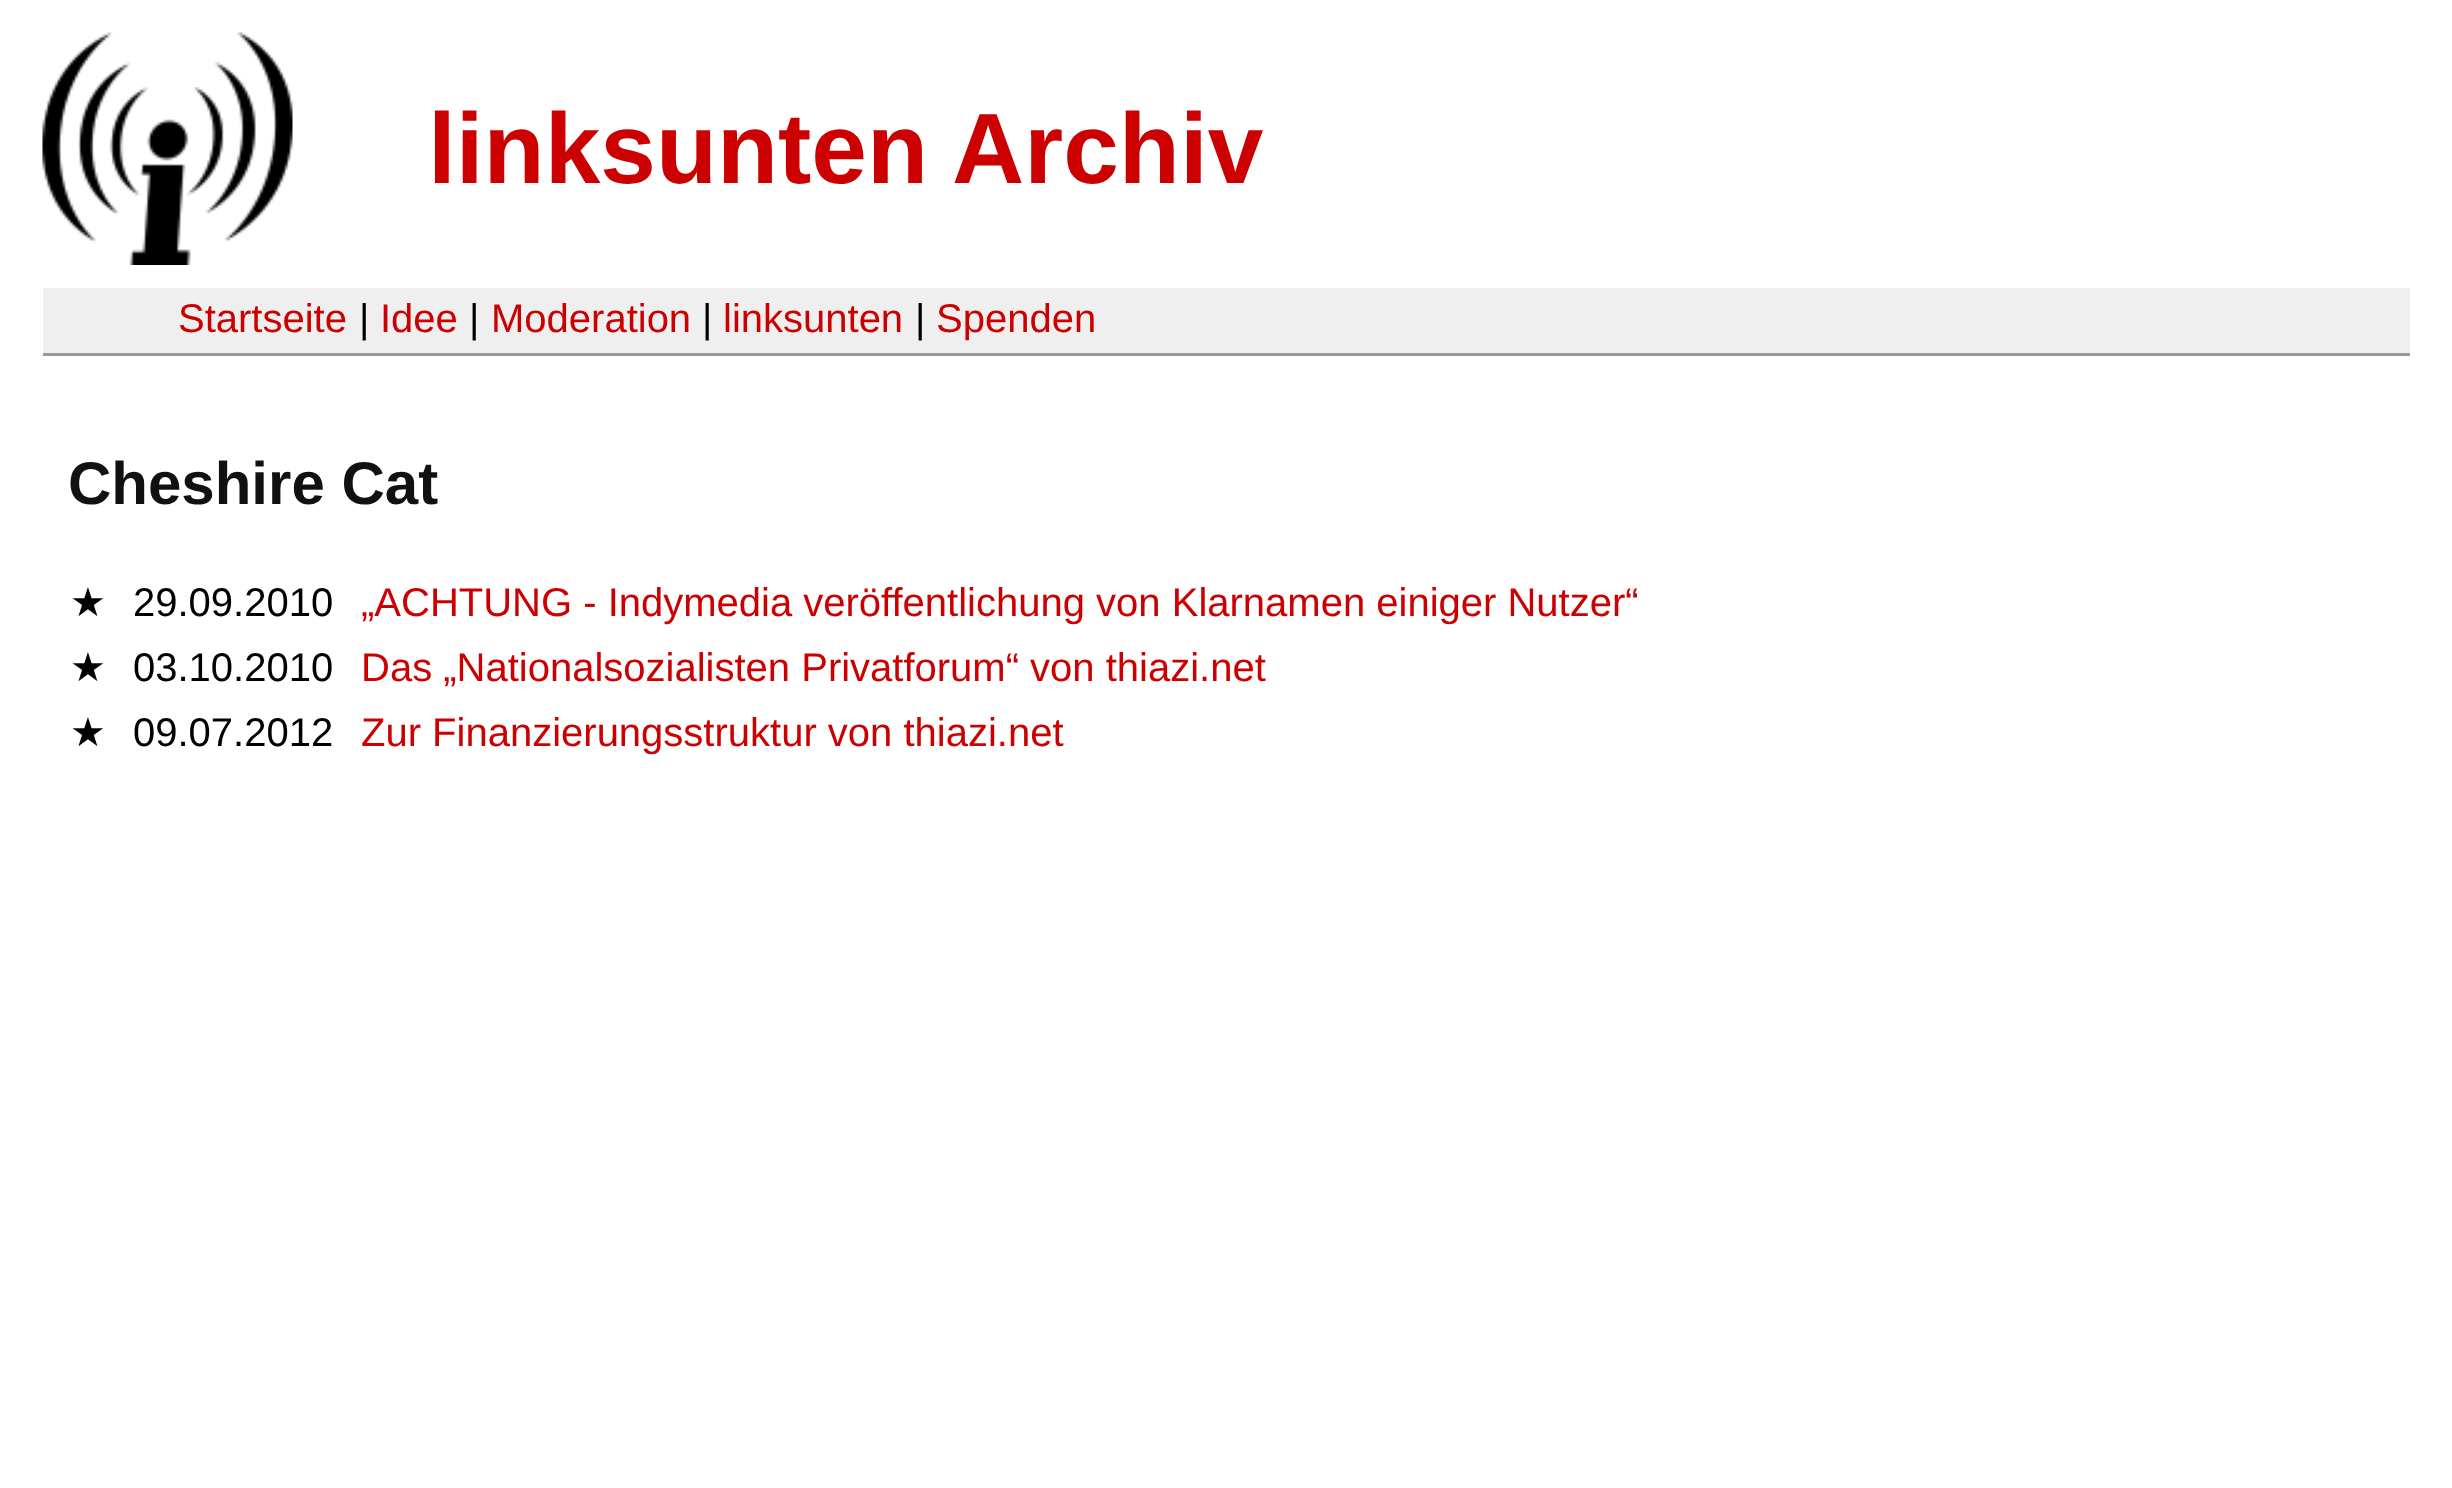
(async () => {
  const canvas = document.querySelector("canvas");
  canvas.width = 2452;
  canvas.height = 1488;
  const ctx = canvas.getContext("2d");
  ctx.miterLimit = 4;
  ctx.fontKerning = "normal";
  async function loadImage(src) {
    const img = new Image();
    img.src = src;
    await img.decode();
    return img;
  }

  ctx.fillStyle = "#ffffff";
  ctx.fillRect(0, 0, 2452, 1488);
  ctx.drawImage(await loadImage("img/1.png"), 42, 32, 251, 233);
  ctx.fillStyle = "#efefef";
  ctx.fillRect(43, 288, 2367, 65);
  ctx.fillStyle = "#999999";
  ctx.fillRect(43, 353, 2367, 3);
  ctx.font = "bold 100px Liberation Sans";
  ctx.fillStyle = "#cc0000";
  ctx.fillText("linksunten Archiv", 428, 183);
  ctx.font = "40px Liberation Sans";
  ctx.fillText("Startseite", 178, 332);
  ctx.fillStyle = "#000000";
  ctx.fillText("|", 359, 332);
  ctx.fillStyle = "#cc0000";
  ctx.fillText("Idee", 380, 332);
  ctx.fillStyle = "#000000";
  ctx.fillText("|", 469, 332);
  ctx.fillStyle = "#cc0000";
  ctx.fillText("Moderation", 491, 332);
  ctx.fillStyle = "#000000";
  ctx.fillText("|", 702, 332);
  ctx.fillStyle = "#cc0000";
  ctx.fillText("linksunten", 723, 332);
  ctx.fillStyle = "#000000";
  ctx.fillText("|", 915, 332);
  ctx.fillStyle = "#cc0000";
  ctx.fillText("Spenden", 936, 332);
  ctx.font = "bold 60px Liberation Sans";
  ctx.fillStyle = "#111111";
  ctx.fillText("Cheshire Cat", 68, 504);
  ctx.font = "40px DejaVu Sans";
  ctx.fillStyle = "#000000";
  ctx.fillText("★", 70, 616);
  ctx.font = "40px Liberation Sans";
  ctx.fillText("29.09.2010", 133, 616);
  ctx.fillStyle = "#cc0000";
  ctx.fillText("„ACHTUNG - Indymedia veröffentlichung von Klarnamen einiger Nutzer“", 361, 616);
  ctx.font = "40px DejaVu Sans";
  ctx.fillStyle = "#000000";
  ctx.fillText("★", 70, 681);
  ctx.font = "40px Liberation Sans";
  ctx.fillText("03.10.2010", 133, 681);
  ctx.fillStyle = "#cc0000";
  ctx.fillText("Das „Nationalsozialisten Privatforum“ von thiazi.net", 361, 681);
  ctx.font = "40px DejaVu Sans";
  ctx.fillStyle = "#000000";
  ctx.fillText("★", 70, 746);
  ctx.font = "40px Liberation Sans";
  ctx.fillText("09.07.2012", 133, 746);
  ctx.fillStyle = "#cc0000";
  ctx.fillText("Zur Finanzierungsstruktur von thiazi.net", 361, 746);
})();
